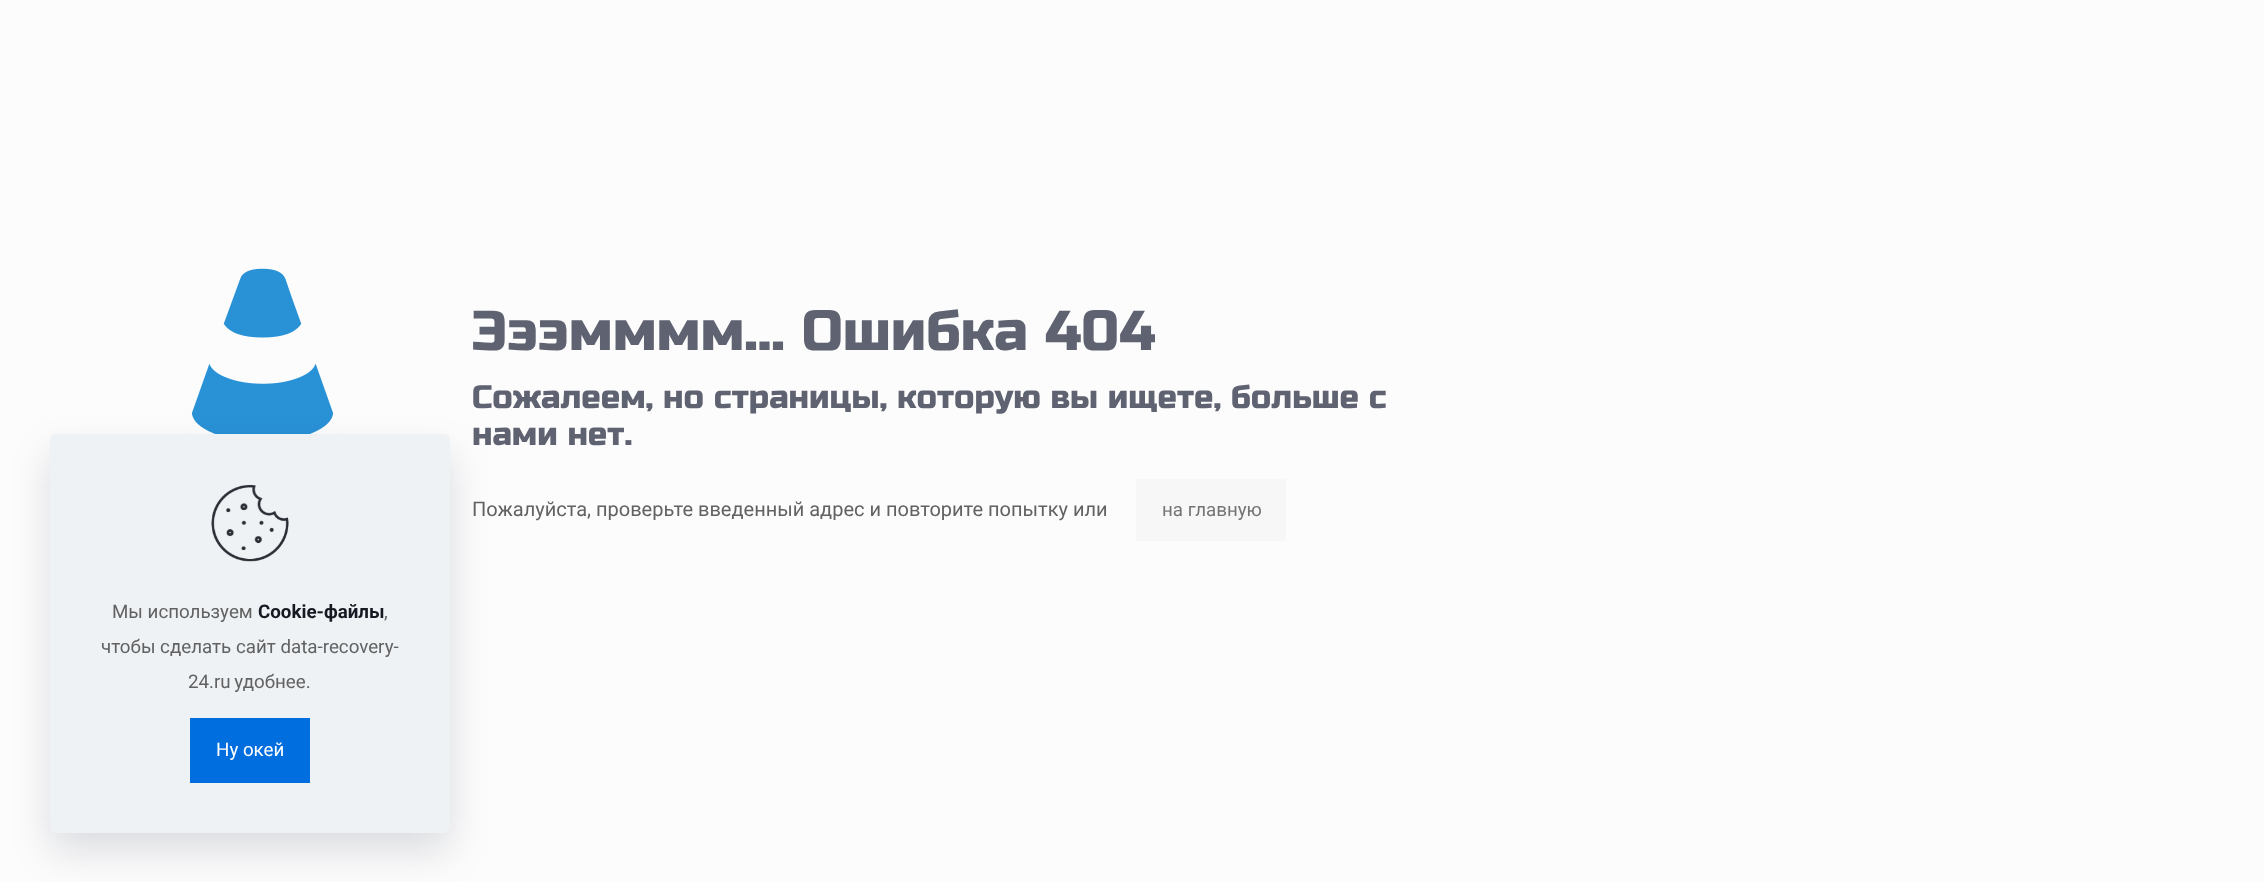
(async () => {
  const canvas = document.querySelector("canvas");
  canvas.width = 2264;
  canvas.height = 882;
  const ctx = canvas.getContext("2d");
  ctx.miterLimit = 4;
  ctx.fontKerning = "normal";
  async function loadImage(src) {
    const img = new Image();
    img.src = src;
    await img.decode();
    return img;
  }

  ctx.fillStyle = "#fcfcfc";
  ctx.fillRect(0, 0, 2264, 882);
  ctx.drawImage(await loadImage("img/1.png"), 184, 268, 158, 166);
  ctx.fillStyle = "#f7f7f7";
  ctx.fillRect(1136, 479, 150, 62);
  ctx.fillStyle = "rgba(1, 7, 39, 0.13)";
  ctx.filter = "blur(19px)";
  ctx.beginPath();
  ctx.roundRect(50, 453, 400, 398, 6);
  ctx.fill();
  ctx.filter = "none";
  ctx.fillStyle = "#eef2f5";
  ctx.beginPath();
  ctx.roundRect(50, 434, 400, 399, 6);
  ctx.fill();
  ctx.drawImage(await loadImage("img/2.png"), 211, 485, 78, 77);
  ctx.fillStyle = "#006edf";
  ctx.fillRect(190, 718, 120, 65);
  ctx.font = "56.25px Russo One";
  ctx.fillStyle = "#5f6271";
  ctx.fillText("Эээмммм... Ошибка 404", 472, 350);
  ctx.font = "32.5px Russo One";
  ctx.fillText("Сожалеем, но страницы, которую вы ищете, больше с", 472, 408);
  ctx.fillText("нами нет.", 472, 445);
  ctx.font = "20px Roboto";
  ctx.fillStyle = "#626262";
  ctx.fillText("Пожалуйста, проверьте введенный адрес и повторите попытку или", 472, 516);
  ctx.font = "18.75px Roboto";
  ctx.fillStyle = "#747474";
  ctx.fillText("на главную", 1162, 516);
  ctx.fillStyle = "#626262";
  ctx.fillText("Мы используем", 112, 618);
  ctx.font = "bold 18.75px Roboto";
  ctx.fillStyle = "#161922";
  ctx.fillText("Cookie-файлы", 258, 618);
  ctx.font = "18.75px Roboto";
  ctx.fillStyle = "#626262";
  ctx.fillText(",", 384, 618);
  ctx.fillText("чтобы сделать сайт data-recovery-", 101, 653);
  ctx.wordSpacing = "-1px";
  ctx.fillText("24.ru удобнее.", 188, 688);
  ctx.wordSpacing = "0px";
  ctx.fillStyle = "#ffffff";
  ctx.fillText("Ну окей", 216, 756);
})();
